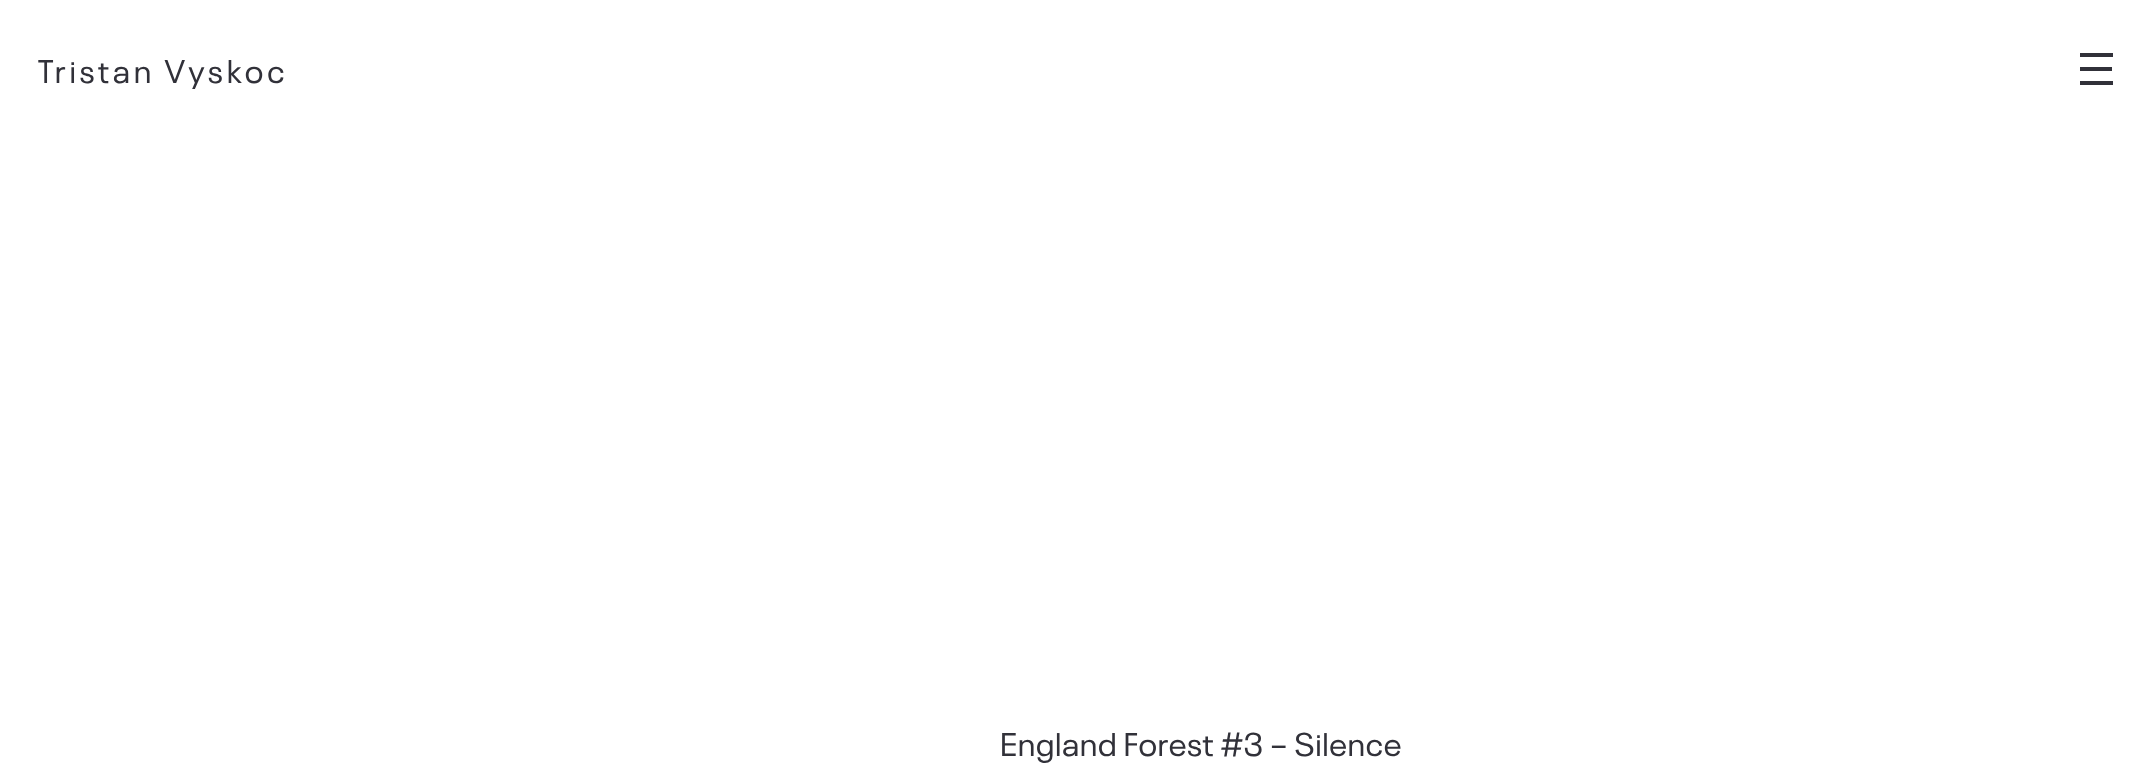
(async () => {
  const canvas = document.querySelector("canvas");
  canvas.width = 2149;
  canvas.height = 775;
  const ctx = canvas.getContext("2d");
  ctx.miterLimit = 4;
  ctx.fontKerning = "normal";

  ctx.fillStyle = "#ffffff";
  ctx.fillRect(0, 0, 2149, 775);
  for (const [x, y, w, h, color] of [
    [2080, 53, 33, 4, "#313139"],
    [2080, 67, 32, 4, "#313139"],
    [2080, 81, 33, 4, "#313139"],
  ]) {
    ctx.fillStyle = color;
    ctx.fillRect(x, y, w, h);
  }
  ctx.save();
  ctx.beginPath();
  ctx.rect(38, 49, 250, 40);
  ctx.clip();
  ctx.letterSpacing = "3.75px";
  ctx.font = "32.5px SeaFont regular";
  ctx.fillText("Tristan Vyskoc", 38, 83);
  ctx.restore();
  ctx.letterSpacing = "0.6px";
  ctx.font = "32.5px SeaFont regular";
  ctx.fillText("England Forest #3 – Silence", 1000, 756);
})();
